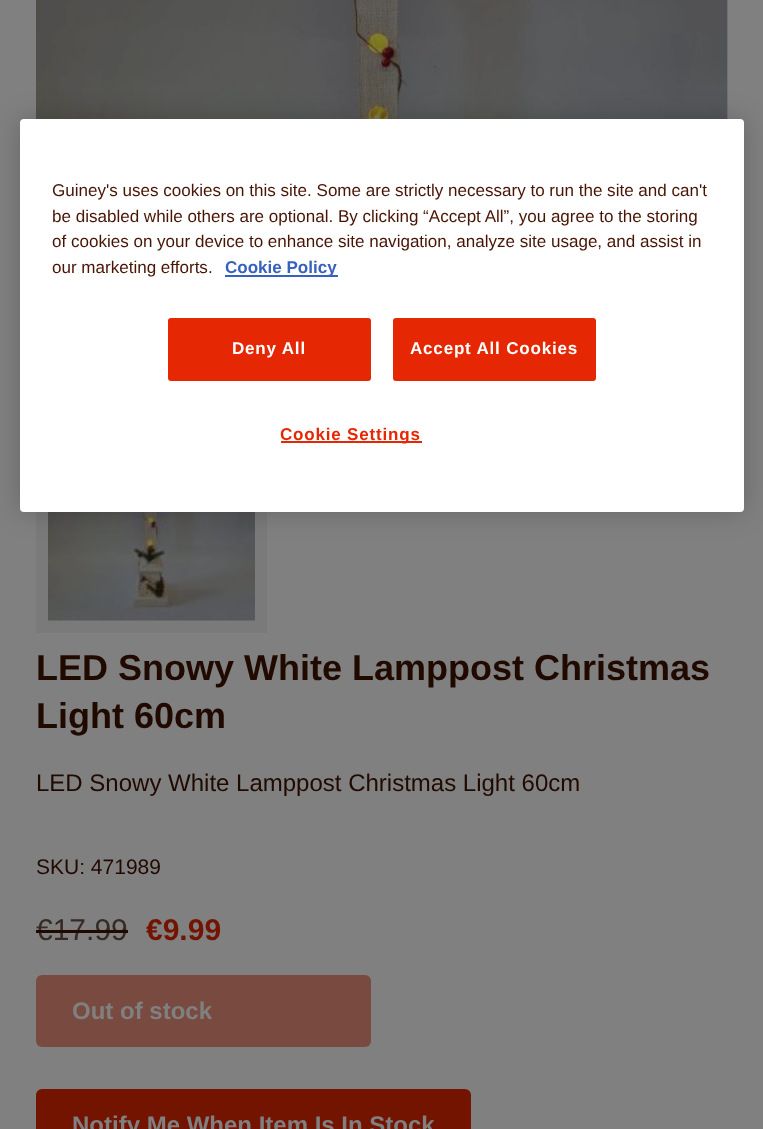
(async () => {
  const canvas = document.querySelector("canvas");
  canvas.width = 763;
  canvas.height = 1129;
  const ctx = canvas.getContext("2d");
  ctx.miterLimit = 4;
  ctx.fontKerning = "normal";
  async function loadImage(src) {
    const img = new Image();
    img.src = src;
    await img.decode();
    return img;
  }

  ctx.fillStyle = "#808080";
  ctx.fillRect(0, 0, 763, 1129);
  ctx.fillStyle = "#7a7a7b";
  ctx.fillRect(727, 0, 1, 119);
  ctx.drawImage(await loadImage("img/1.png"), 36, 0, 692, 119);
  ctx.fillRect(36, 512, 231, 121);
  ctx.drawImage(await loadImage("img/2.png"), 48, 512, 207, 109);
  ctx.fillStyle = "rgba(0, 0, 0, 0.2)";
  ctx.filter = "blur(13.5px)";
  ctx.beginPath();
  ctx.roundRect(20, 119, 724, 393, 4);
  ctx.fill();
  ctx.filter = "none";
  ctx.fillStyle = "#ffffff";
  ctx.beginPath();
  ctx.roundRect(20, 119, 724, 393, 4);
  ctx.fill();
  ctx.fillStyle = "#3860be";
  ctx.fillRect(225, 275, 113, 2);
  ctx.fillStyle = "#e52704";
  ctx.beginPath();
  ctx.roundRect(169, 319, 201, 61, 2);
  ctx.fill();
  ctx.strokeStyle = "#e52704";
  ctx.lineWidth = 2;
  ctx.stroke();
  ctx.beginPath();
  ctx.roundRect(394, 319, 201, 61, 2);
  ctx.fill();
  ctx.stroke();
  ctx.fillRect(281, 441, 141, 2);
  ctx.fillStyle = "#794a40";
  ctx.beginPath();
  ctx.roundRect(36, 975, 335, 72, 6);
  ctx.fill();
  ctx.fillStyle = "#731400";
  ctx.beginPath();
  ctx.roundRect(36, 1089, 435, 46, 6);
  ctx.fill();
  ctx.font = "17.05px Liberation Sans";
  ctx.fillStyle = "#481404";
  for (const [text, x, y] of [
    ["Guiney's uses cookies on this site. Some are strictly necessary to run the site and can't", 52, 196],
    ["be disabled while others are optional. By clicking “Accept All”, you agree to the storing", 52, 222],
    ["of cookies on your device to enhance site navigation, analyze site usage, and assist in", 52, 247],
    ["our marketing efforts.", 52, 273],
  ]) {
    ctx.fillText(text, x, y);
  }
  ctx.font = "bold 17.05px Liberation Sans";
  ctx.fillStyle = "#3860be";
  ctx.fillText("Cookie Policy", 225, 273);
  ctx.letterSpacing = "0.8px";
  ctx.fillStyle = "#ffffff";
  ctx.fillText("Deny All", 232, 354);
  ctx.fillText("Accept All Cookies", 410, 354);
  ctx.fillStyle = "#e52704";
  ctx.fillText("Cookie Settings", 280, 440);
  ctx.letterSpacing = "0px";
  ctx.font = "bold 36px Liberation Sans";
  ctx.fillStyle = "#200a00";
  ctx.fillText("LED Snowy White Lamppost Christmas", 36, 680);
  ctx.fillText("Light 60cm", 36, 728);
  ctx.font = "24px Liberation Sans";
  ctx.fillText("LED Snowy White Lamppost Christmas Light 60cm", 36, 791);
  ctx.font = "21px Liberation Sans";
  ctx.fillText("SKU: 471989", 36, 874);
  ctx.font = "30px Liberation Sans";
  ctx.fillStyle = "#362a26";
  ctx.fillText("€17.99", 36, 940);
  ctx.fillStyle = "#200a00";
  ctx.fillRect(36, 930, 92, 3);
  ctx.font = "bold 30px Liberation Sans";
  ctx.fillStyle = "#731400";
  ctx.fillText("€9.99", 146, 940);
  ctx.font = "bold 24px Liberation Sans";
  ctx.fillStyle = "#808080";
  ctx.fillText("Out of stock", 72, 1019);
  ctx.fillText("Notify Me When Item Is In Stock", 72, 1133);
})();
